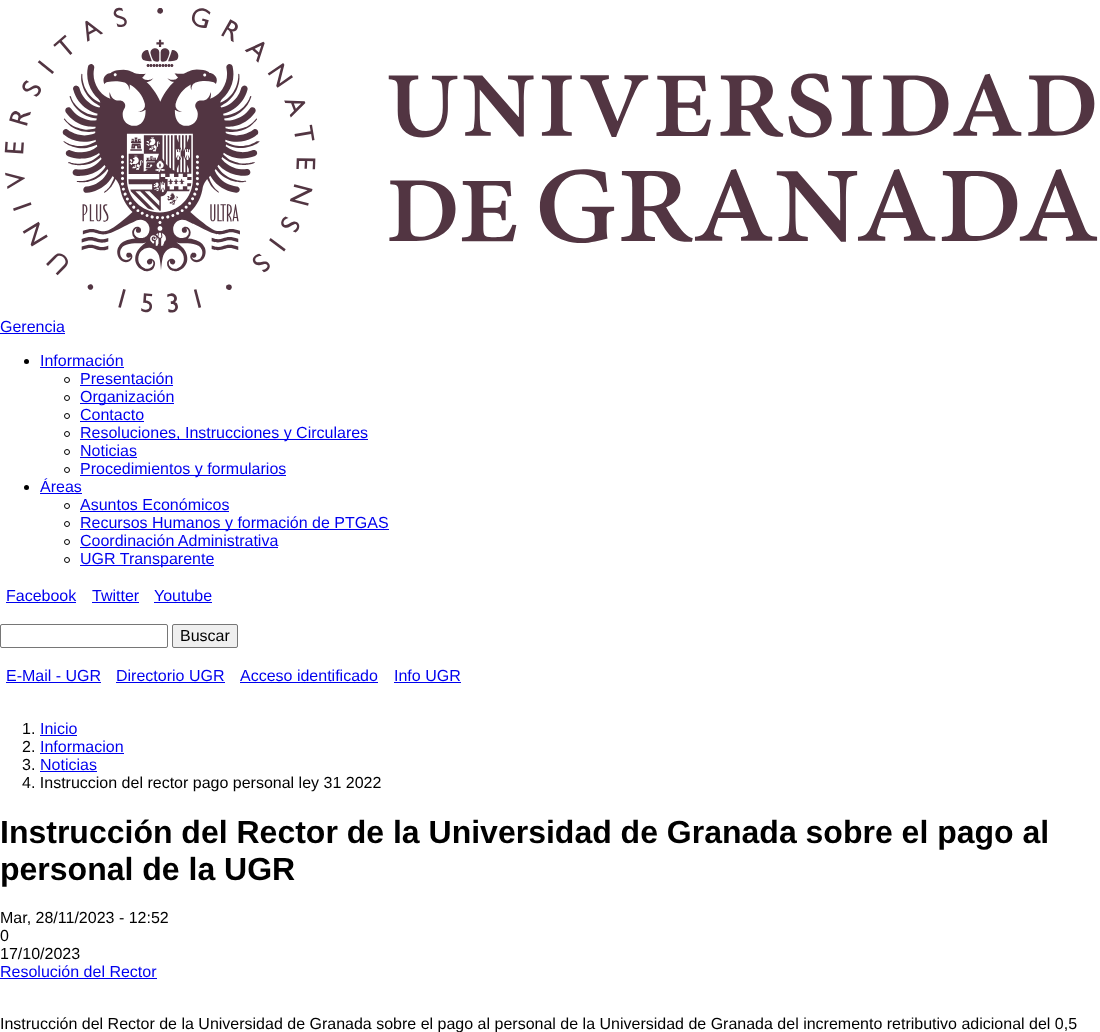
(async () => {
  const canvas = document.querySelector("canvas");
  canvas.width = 1100;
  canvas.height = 1032;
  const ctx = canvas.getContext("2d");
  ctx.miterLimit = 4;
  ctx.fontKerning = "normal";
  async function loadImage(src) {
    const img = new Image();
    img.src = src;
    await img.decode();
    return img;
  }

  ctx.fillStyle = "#ffffff";
  ctx.fillRect(0, 0, 1100, 1032);
  ctx.drawImage(await loadImage("img/1.png"), 4, 7, 1094, 306);
  ctx.fillStyle = "#0000ee";
  ctx.fillRect(0, 333, 65, 1);
  ctx.fillStyle = "#000000";
  ctx.beginPath();
  ctx.arc(26.5, 361.5, 2.5, 0, Math.PI * 2);
  ctx.fill();
  ctx.fillStyle = "#0000ee";
  ctx.fillRect(40, 367, 84, 1);
  ctx.beginPath();
  ctx.arc(67, 380, 2.5, 0, Math.PI * 2);
  ctx.strokeStyle = "#000000";
  ctx.stroke();
  ctx.fillRect(80, 385, 93, 1);
  ctx.beginPath();
  ctx.arc(67, 398, 2.5, 0, Math.PI * 2);
  ctx.stroke();
  ctx.fillRect(80, 403, 94, 1);
  ctx.beginPath();
  ctx.arc(67, 416, 2.5, 0, Math.PI * 2);
  ctx.stroke();
  ctx.fillRect(80, 421, 64, 1);
  ctx.beginPath();
  ctx.arc(67, 434, 2.5, 0, Math.PI * 2);
  ctx.stroke();
  ctx.fillRect(80, 439, 288, 1);
  ctx.beginPath();
  ctx.arc(67, 452, 2.5, 0, Math.PI * 2);
  ctx.stroke();
  ctx.fillRect(80, 457, 57, 1);
  ctx.beginPath();
  ctx.arc(67, 470, 2.5, 0, Math.PI * 2);
  ctx.stroke();
  ctx.fillRect(80, 475, 206, 1);
  ctx.fillStyle = "#000000";
  ctx.beginPath();
  ctx.arc(26.5, 487.5, 2.5, 0, Math.PI * 2);
  ctx.fill();
  ctx.fillStyle = "#0000ee";
  ctx.fillRect(40, 493, 42, 1);
  ctx.beginPath();
  ctx.arc(67, 506, 2.5, 0, Math.PI * 2);
  ctx.stroke();
  ctx.fillRect(80, 511, 149, 1);
  ctx.beginPath();
  ctx.arc(67, 524, 2.5, 0, Math.PI * 2);
  ctx.stroke();
  ctx.fillRect(80, 529, 309, 1);
  ctx.beginPath();
  ctx.arc(67, 542, 2.5, 0, Math.PI * 2);
  ctx.stroke();
  ctx.fillRect(80, 547, 198, 1);
  ctx.beginPath();
  ctx.arc(67, 560, 2.5, 0, Math.PI * 2);
  ctx.stroke();
  for (const [x, y, w, h, color] of [
    [80, 565, 134, 1, "#0000ee"],
    [6, 602, 70, 1, "#0000ee"],
    [92, 602, 47, 1, "#0000ee"],
    [154, 602, 58, 1, "#0000ee"],
  ]) {
    ctx.fillStyle = color;
    ctx.fillRect(x, y, w, h);
  }
  ctx.beginPath();
  ctx.roundRect(0.5, 624.5, 167, 23, 1.5);
  ctx.strokeStyle = "#767676";
  ctx.stroke();
  ctx.fillStyle = "#efefef";
  ctx.beginPath();
  ctx.roundRect(172.5, 624.5, 65, 23, 1.5);
  ctx.fill();
  ctx.stroke();
  for (const [x, y, w, h, color] of [
    [6, 682, 95, 1, "#0000ee"],
    [116, 682, 109, 1, "#0000ee"],
    [240, 682, 138, 1, "#0000ee"],
    [394, 682, 67, 1, "#0000ee"],
    [40, 735, 37, 1, "#0000ee"],
    [40, 753, 84, 1, "#0000ee"],
    [40, 771, 57, 1, "#0000ee"],
    [0, 978, 157, 1, "#0000ee"],
  ]) {
    ctx.fillStyle = color;
    ctx.fillRect(x, y, w, h);
  }
  ctx.font = "16px Liberation Sans";
  for (const [text, x, y] of [
    ["Gerencia", 0, 332],
    ["Información", 40, 366],
    ["Presentación", 80, 384],
    ["Organización", 80, 402],
    ["Contacto", 80, 420],
    ["Resoluciones, Instrucciones y Circulares", 80, 438],
    ["Noticias", 80, 456],
    ["Procedimientos y formularios", 80, 474],
    ["Áreas", 40, 492],
    ["Asuntos Económicos", 80, 510],
    ["Recursos Humanos y formación de PTGAS", 80, 528],
    ["Coordinación Administrativa", 80, 546],
    ["UGR Transparente", 80, 564],
    ["Facebook", 6, 601],
    ["Twitter", 92, 601],
    ["Youtube", 154, 601],
  ]) {
    ctx.fillText(text, x, y);
  }
  ctx.fillStyle = "#000000";
  ctx.fillText("Buscar", 180, 641);
  ctx.fillStyle = "#0000ee";
  for (const [text, x, y] of [
    ["E-Mail - UGR", 6, 681],
    ["Directorio UGR", 116, 681],
    ["Acceso identificado", 240, 681],
    ["Info UGR", 394, 681],
  ]) {
    ctx.fillText(text, x, y);
  }
  ctx.fillStyle = "#000000";
  ctx.fillText("1.", 22, 734);
  ctx.fillStyle = "#0000ee";
  ctx.fillText("Inicio", 40, 734);
  ctx.fillStyle = "#000000";
  ctx.fillText("2.", 22, 752);
  ctx.fillStyle = "#0000ee";
  ctx.fillText("Informacion", 40, 752);
  ctx.fillStyle = "#000000";
  ctx.fillText("3.", 22, 770);
  ctx.fillStyle = "#0000ee";
  ctx.fillText("Noticias", 40, 770);
  ctx.fillStyle = "#000000";
  ctx.fillText("4. Instruccion del rector pago personal ley 31 2022", 22, 788);
  ctx.font = "bold 32px Liberation Sans";
  ctx.fillText("Instrucción del Rector de la Universidad de Granada sobre el pago al", 0, 843);
  ctx.fillText("personal de la UGR", 0, 880);
  ctx.font = "16px Liberation Sans";
  for (const [text, x, y] of [
    ["Mar, 28/11/2023 - 12:52", 0, 923],
    ["0", 0, 941],
    ["17/10/2023", 0, 959],
  ]) {
    ctx.fillText(text, x, y);
  }
  ctx.fillStyle = "#0000ee";
  ctx.fillText("Resolución del Rector", 0, 977);
  ctx.fillStyle = "#000000";
  ctx.fillText("Instrucción del Rector de la Universidad de Granada sobre el pago al personal de la Universidad de Granada del incremento retributivo adicional del 0,5", 0, 1029);
})();
